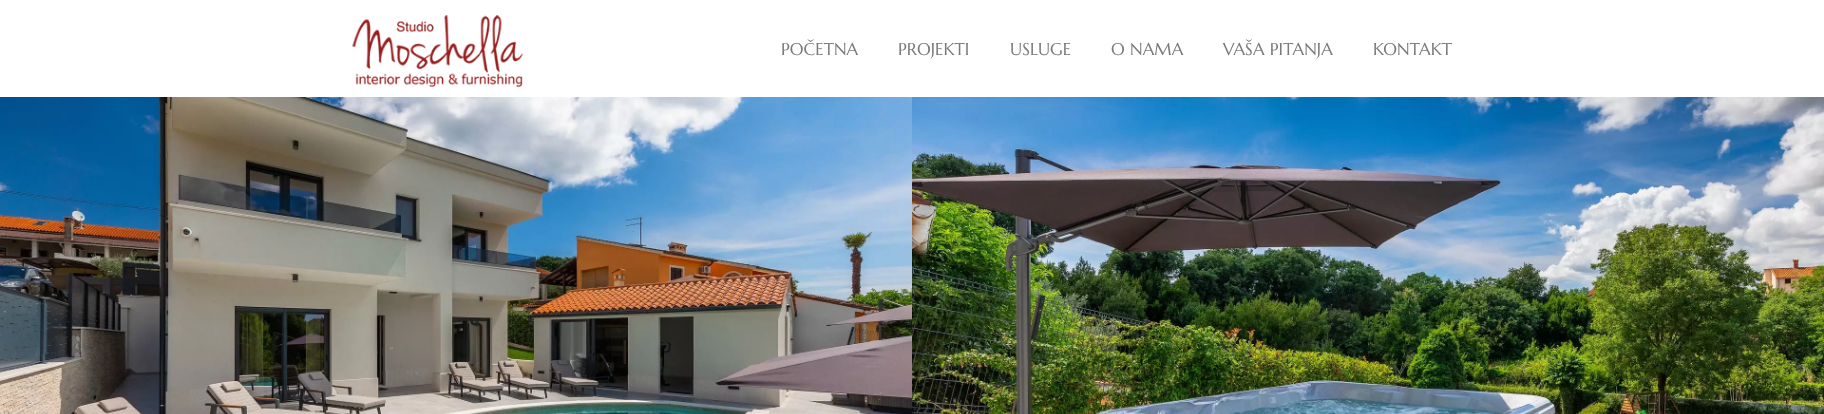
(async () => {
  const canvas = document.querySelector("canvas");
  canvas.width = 1824;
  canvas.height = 414;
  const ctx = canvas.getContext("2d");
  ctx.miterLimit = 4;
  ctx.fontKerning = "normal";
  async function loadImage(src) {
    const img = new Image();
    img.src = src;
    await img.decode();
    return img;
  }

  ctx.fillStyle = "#ffffff";
  ctx.fillRect(0, 0, 1824, 414);
  ctx.drawImage(await loadImage("img/1.png"), 352, 15, 171, 72);
  ctx.drawImage(await loadImage("img/2.png"), 0, 97, 912, 317);
  ctx.drawImage(await loadImage("img/3.png"), 912, 97, 912, 317);
  ctx.letterSpacing = "0.1px";
  ctx.font = "17px Marcellus";
  ctx.fillStyle = "#7a7a7a";
  for (const [text, x, y] of [
    ["POČETNA", 781, 55],
    ["PROJEKTI", 898, 55],
    ["USLUGE", 1010, 55],
    ["O NAMA", 1111, 55],
    ["VAŠA PITANJA", 1223, 55],
    ["KONTAKT", 1373, 55],
  ]) {
    ctx.fillText(text, x, y);
  }
})();
